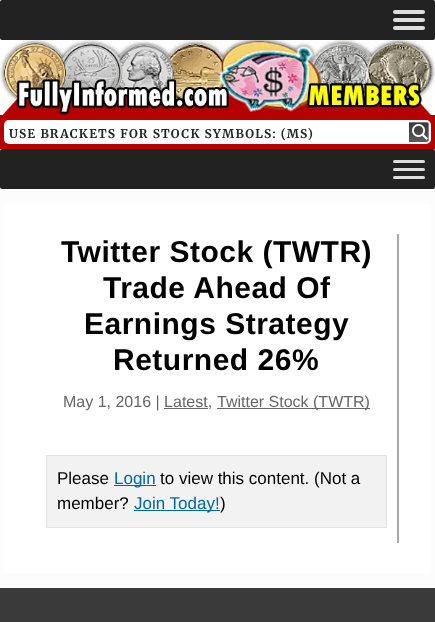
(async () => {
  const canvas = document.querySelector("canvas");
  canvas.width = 435;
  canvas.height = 622;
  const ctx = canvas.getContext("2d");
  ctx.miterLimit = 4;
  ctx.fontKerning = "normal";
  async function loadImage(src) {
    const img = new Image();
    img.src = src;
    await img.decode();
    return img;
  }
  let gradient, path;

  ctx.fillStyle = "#fcfcfc";
  ctx.fillRect(0, 0, 435, 622);
  ctx.fillStyle = "#ffffff";
  ctx.fillRect(0, 0, 435, 189);
  ctx.fillStyle = "#222222";
  ctx.beginPath();
  ctx.roundRect(0, 0, 435, 40, 2);
  ctx.fill();
  ctx.fillStyle = "#dddddd";
  ctx.beginPath();
  ctx.roundRect(393, 10, 32, 4, 2);
  ctx.fill();
  ctx.beginPath();
  ctx.roundRect(393, 18, 32, 4, 2);
  ctx.fill();
  ctx.beginPath();
  ctx.roundRect(393, 26, 32, 4, 2);
  ctx.fill();
  ctx.drawImage(await loadImage("img/1.png"), 0, 40, 435, 75);
  ctx.fillStyle = "#b70000";
  ctx.fillRect(0, 115, 435, 34);
  ctx.fillStyle = "#ffffff";
  ctx.beginPath();
  ctx.roundRect(4, 120, 427, 24, 5);
  ctx.fill();
  gradient = ctx.createLinearGradient(419, 122, 419, 142);
  gradient.addColorStop(0, "#363636");
  gradient.addColorStop(1, "#5a5a5a");
  ctx.fillStyle = gradient;
  ctx.beginPath();
  ctx.roundRect(409, 122, 20, 20, [0, 3, 3, 0]);
  ctx.fill();
  ctx.save();
  ctx.beginPath();
  ctx.rect(409, 122, 20, 20);
  ctx.clip();
  ctx.fillStyle = "rgba(255, 255, 255, 0.33)";
  path = new Path2D("M408 123V142H310V122H426C428 122 429 123 429 125V139C429 140 429 141 428 141V123Z");
  ctx.fill(path);
  ctx.restore();
  ctx.drawImage(await loadImage("img/2.png"), 412, 124, 16, 16);
  ctx.fillStyle = "#222222";
  ctx.beginPath();
  ctx.roundRect(0, 149, 435, 40, 2);
  ctx.fill();
  ctx.fillStyle = "#dddddd";
  ctx.beginPath();
  ctx.roundRect(393, 160, 32, 3, 1.5);
  ctx.fill();
  ctx.beginPath();
  ctx.roundRect(393, 168, 32, 3, 1.5);
  ctx.fill();
  ctx.beginPath();
  ctx.roundRect(393, 176, 32, 3, 1.5);
  ctx.fill();
  for (const [x, y, w, h, color] of [
    [4, 204, 427, 369, "#ffffff"],
    [397, 234, 2, 309, "#aaaaaa"],
    [217, 408, 153, 1, "#666666"],
    [164, 408, 44, 1, "#666666"],
  ]) {
    ctx.fillStyle = color;
    ctx.fillRect(x, y, w, h);
  }
  ctx.fillStyle = "#f2f2f2";
  ctx.beginPath();
  ctx.rect(46.5, 455.5, 340, 72);
  ctx.fill();
  ctx.strokeStyle = "#e3e3e3";
  ctx.stroke();
  for (const [x, y, w, h, color] of [
    [114, 485, 42, 1, "#0066aa"],
    [134, 510, 86, 1, "#0066aa"],
    [0, 588, 435, 34, "#3a3a3a"],
  ]) {
    ctx.fillStyle = color;
    ctx.fillRect(x, y, w, h);
  }
  ctx.letterSpacing = "1.2px";
  ctx.font = "300 12px Merriweather";
  ctx.fillStyle = "#262626";
  ctx.fillText("USE BRACKETS FOR STOCK SYMBOLS: (MS)", 9, 138);
  ctx.letterSpacing = "0.5px";
  ctx.font = "bold 30px Liberation Sans";
  ctx.fillStyle = "#000000";
  for (const [text, x, y] of [
    ["Twitter Stock (TWTR)", 61, 262],
    ["Trade Ahead Of", 103, 298],
    ["Earnings Strategy", 84, 334],
    ["Returned 26%", 113, 370],
  ]) {
    ctx.fillText(text, x, y);
  }
  ctx.letterSpacing = "0px";
  ctx.font = "16px Liberation Sans";
  ctx.fillStyle = "#666666";
  ctx.fillText("May 1, 2016 | Latest,", 63, 407);
  ctx.fillText("Twitter Stock (TWTR)", 217, 407);
  ctx.font = "17px Liberation Sans";
  ctx.fillStyle = "#000000";
  ctx.fillText("Please", 57, 484);
  ctx.fillStyle = "#0066aa";
  ctx.fillText("Login", 114, 484);
  ctx.fillStyle = "#000000";
  ctx.fillText("to view this content. (Not a", 160, 484);
  ctx.fillText("member?", 57, 509);
  ctx.fillStyle = "#0066aa";
  ctx.fillText("Join Today!", 134, 509);
  ctx.fillStyle = "#000000";
  ctx.fillText(")", 220, 509);
})();
